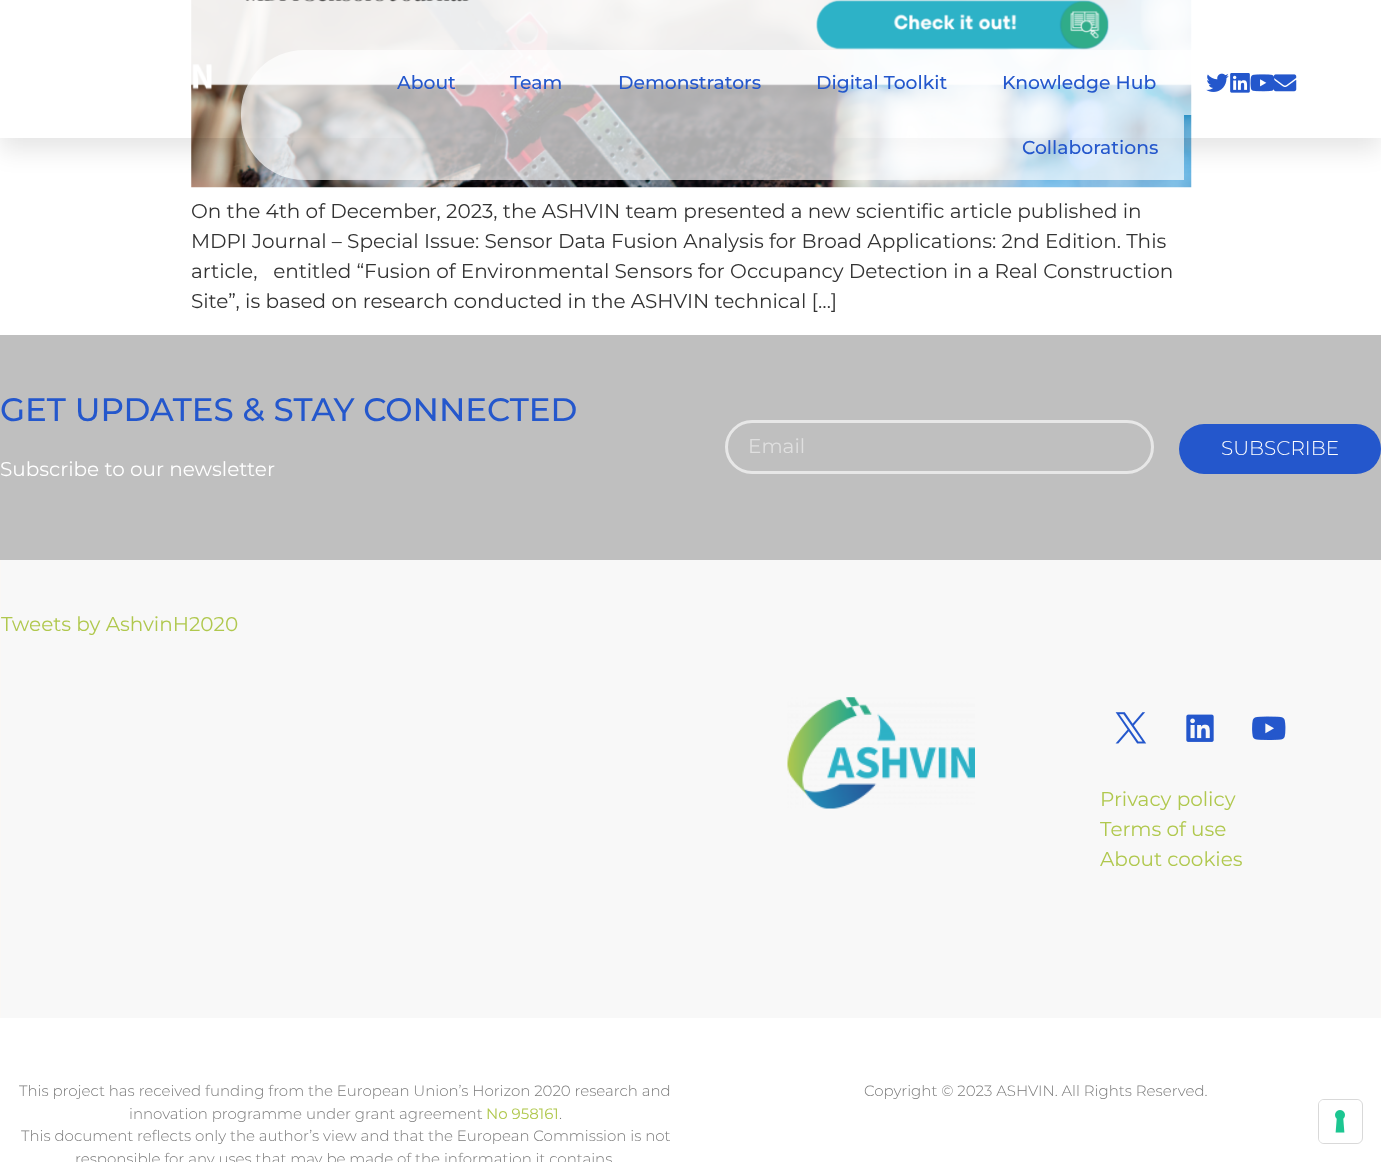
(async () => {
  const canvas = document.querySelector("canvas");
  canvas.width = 1381;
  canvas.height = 1162;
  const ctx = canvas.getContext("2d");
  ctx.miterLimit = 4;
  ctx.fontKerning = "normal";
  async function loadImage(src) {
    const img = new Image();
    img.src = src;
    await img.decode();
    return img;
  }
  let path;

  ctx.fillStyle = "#ffffff";
  ctx.fillRect(0, 0, 1381, 1162);
  ctx.drawImage(await loadImage("img/6.png"), 191, 0, 1001, 188);
  ctx.save();
  path = new Path2D("M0 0H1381V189H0ZM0 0H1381V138H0Z");
  ctx.clip(path, "evenodd");
  ctx.fillStyle = "rgba(0, 0, 0, 0.1)";
  ctx.filter = "blur(12.5px)";
  ctx.beginPath();
  ctx.rect(0, 13, 1381, 137);
  ctx.fill();
  ctx.filter = "none";
  ctx.restore();
  ctx.drawImage(await loadImage("img/1.png"), 192, 64, 21, 26);
  ctx.fillStyle = "rgba(255, 255, 255, 0.67)";
  ctx.beginPath();
  ctx.roundRect(241, 50, 943, 130, [63, 0, 0, 63]);
  ctx.fill();
  ctx.beginPath();
  ctx.roundRect(1184, 50, 135, 65, [0, 32.5, 32.5, 0]);
  ctx.fill();
  ctx.drawImage(await loadImage("img/2.png"), 1206, 73, 23, 19);
  ctx.drawImage(await loadImage("img/3.png"), 1230, 73, 20, 20);
  ctx.drawImage(await loadImage("img/4.png"), 1250, 74, 25, 18);
  ctx.drawImage(await loadImage("img/5.png"), 1273, 74, 24, 18);
  ctx.fillStyle = "#bfbfbf";
  ctx.fillRect(0, 335, 1381, 225);
  ctx.beginPath();
  ctx.roundRect(726.5, 421.5, 426, 51, 25.5);
  ctx.strokeStyle = "#e7e7e7";
  ctx.lineWidth = 3;
  ctx.stroke();
  ctx.fillStyle = "#2457cc";
  ctx.beginPath();
  ctx.roundRect(1179, 424, 202, 50, 25);
  ctx.fill();
  for (const [x, y, w, h, color] of [
    [1, 560, 1379, 458, "#f8f8f8"],
    [1380, 560, 1, 458, "#faf8f6"],
    [0, 560, 1, 458, "#faf8f6"],
  ]) {
    ctx.fillStyle = color;
    ctx.fillRect(x, y, w, h);
  }
  ctx.drawImage(await loadImage("img/7.png"), 787, 697, 188, 112);
  ctx.drawImage(await loadImage("img/8.png"), 1115, 712, 32, 32);
  ctx.drawImage(await loadImage("img/9.png"), 1186, 714, 28, 28);
  ctx.drawImage(await loadImage("img/10.png"), 1252, 716, 34, 24);
  ctx.beginPath();
  ctx.roundRect(1318.5, 1099.5, 44, 44, 5.5);
  ctx.strokeStyle = "#d9d9d9";
  ctx.lineWidth = 1;
  ctx.stroke();
  ctx.fillStyle = "#ffffff";
  ctx.beginPath();
  ctx.roundRect(1319, 1100, 42, 43, 5);
  ctx.fill();
  ctx.drawImage(await loadImage("img/11.png"), 1335, 1110, 10, 23);
  ctx.font = "500 18.75px Montserrat";
  ctx.fillStyle = "#2457cc";
  for (const [text, x, y] of [
    ["About", 397, 89],
    ["Team", 510, 89],
    ["Demonstrators", 618, 89],
    ["Digital Toolkit", 816, 89],
    ["Knowledge Hub", 1002, 89],
    ["Collaborations", 1022, 154],
  ]) {
    ctx.fillText(text, x, y);
  }
  ctx.font = "20px Montserrat";
  ctx.fillStyle = "#333333";
  for (const [text, x, y] of [
    ["On the 4th of December, 2023, the ASHVIN team presented a new scientific article published in", 191, 218],
    ["MDPI Journal – Special Issue: Sensor Data Fusion Analysis for Broad Applications: 2nd Edition. This", 191, 248],
    ["article,   entitled “Fusion of Environmental Sensors for Occupancy Detection in a Real Construction", 191, 278],
    ["Site”, is based on research conducted in the ASHVIN technical […]", 191, 308],
  ]) {
    ctx.fillText(text, x, y);
  }
  ctx.font = "500 32.5px Montserrat";
  ctx.fillStyle = "#2457cc";
  ctx.fillText("GET UPDATES & STAY CONNECTED", 0, 421);
  ctx.font = "20px Montserrat";
  ctx.fillStyle = "#ffffff";
  ctx.fillText("Subscribe to our newsletter", 0, 476);
  ctx.fillStyle = "#dfdfdf";
  ctx.fillText("Email", 748, 453);
  ctx.font = "300 20px Montserrat";
  ctx.fillStyle = "#ffffff";
  ctx.fillText("SUBSCRIBE", 1221, 455);
  ctx.font = "20px Montserrat";
  ctx.fillStyle = "#b0c84e";
  for (const [text, x, y] of [
    ["Tweets by AshvinH2020", 1, 631],
    ["Privacy policy", 1100, 806],
    ["Terms of use", 1100, 836],
    ["About cookies", 1100, 866],
  ]) {
    ctx.fillText(text, x, y);
  }
  ctx.font = "300 15px Montserrat";
  ctx.fillStyle = "#7a7a7a";
  ctx.fillText("This project has received funding from the European Union’s Horizon 2020 research and", 19, 1096);
  ctx.fillText("innovation programme under grant agreement", 129, 1119);
  ctx.font = "15px Montserrat";
  ctx.fillStyle = "#b0c84e";
  ctx.fillText("No 958161", 486, 1119);
  ctx.font = "300 15px Montserrat";
  ctx.fillStyle = "#7a7a7a";
  for (const [text, x, y] of [
    [".", 559, 1119],
    ["This document reflects only the author’s view and that the European Commission is not", 21, 1141],
    ["responsible for any uses that may be made of the information it contains", 75, 1164],
    ["Copyright © 2023 ASHVIN. All Rights Reserved.", 864, 1096],
  ]) {
    ctx.fillText(text, x, y);
  }
})();
